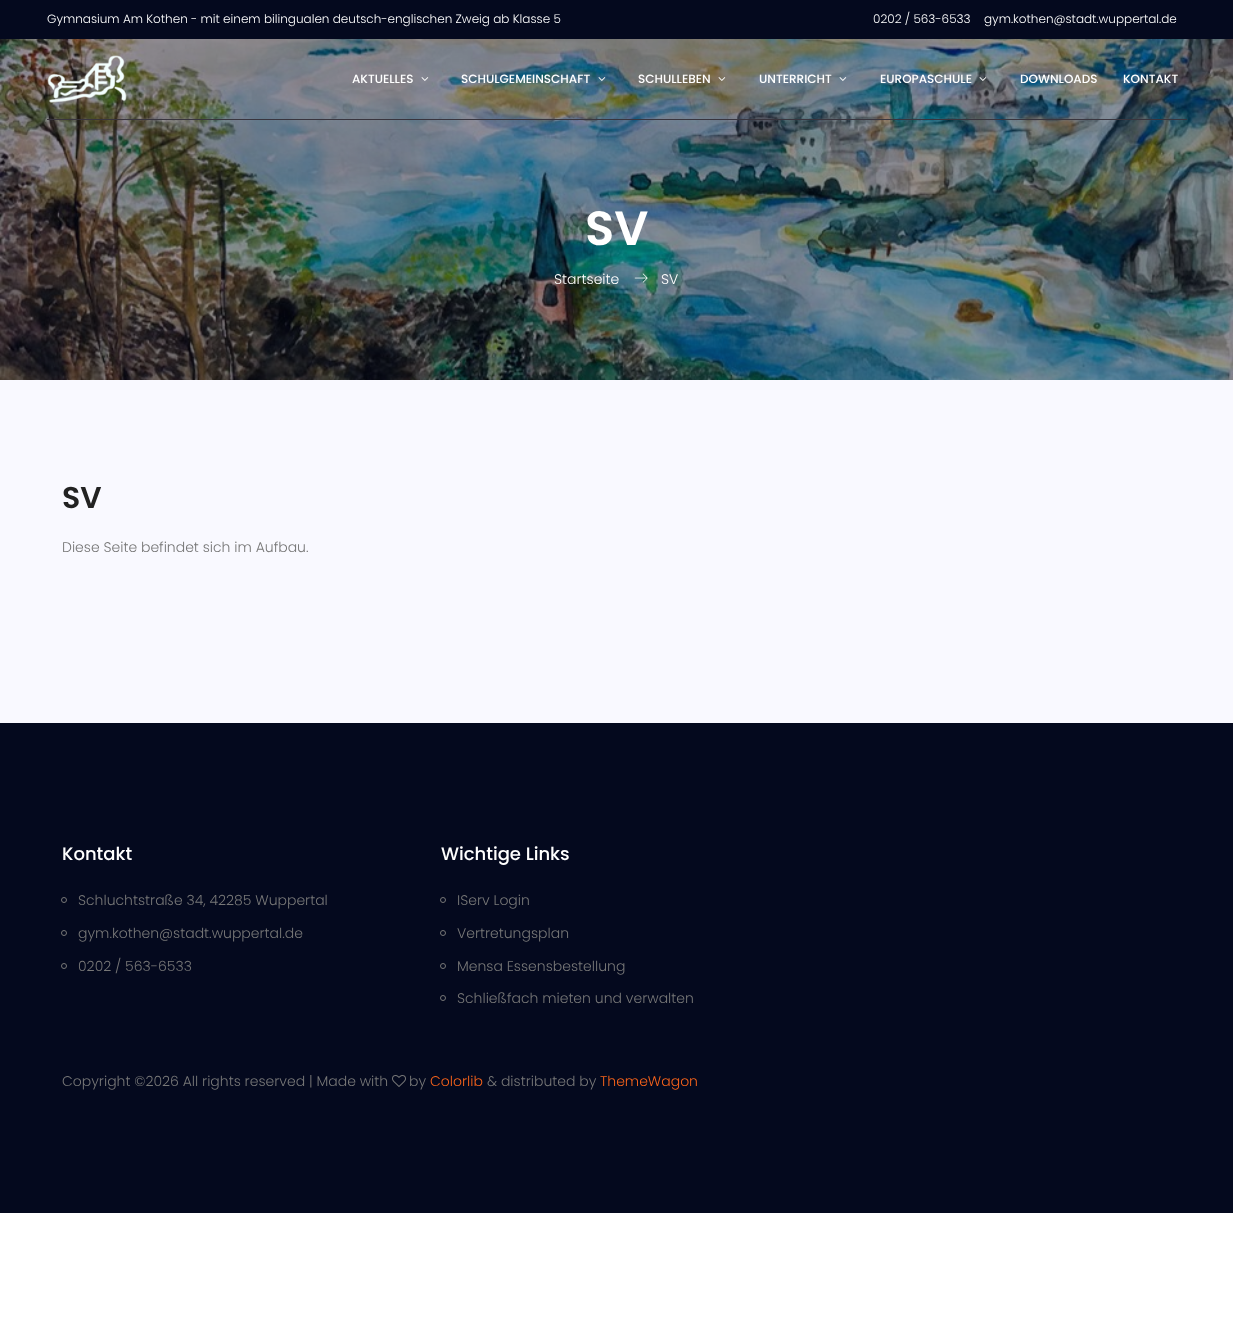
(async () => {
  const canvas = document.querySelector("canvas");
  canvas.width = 1233;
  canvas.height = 1323;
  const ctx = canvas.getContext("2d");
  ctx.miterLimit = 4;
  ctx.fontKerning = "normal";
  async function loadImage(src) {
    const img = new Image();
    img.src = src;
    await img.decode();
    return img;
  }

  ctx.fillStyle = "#ffffff";
  ctx.fillRect(0, 0, 1233, 1323);
  ctx.fillStyle = "#04091e";
  ctx.fillRect(0, 0, 1233, 39);
  ctx.drawImage(await loadImage("img/7.png"), 0, 39, 1233, 341);
  ctx.fillStyle = "#39353e";
  ctx.fillRect(47, 119, 1140, 1);
  ctx.drawImage(await loadImage("img/1.png"), 47, 55, 80, 48);
  ctx.drawImage(await loadImage("img/2.png"), 421, 77, 8, 4);
  ctx.drawImage(await loadImage("img/3.png"), 598, 77, 8, 4);
  ctx.drawImage(await loadImage("img/4.png"), 718, 77, 8, 4);
  ctx.drawImage(await loadImage("img/5.png"), 839, 77, 8, 4);
  ctx.drawImage(await loadImage("img/6.png"), 979, 77, 8, 4);
  ctx.drawImage(await loadImage("img/8.png"), 634, 273, 14, 10);
  ctx.fillStyle = "#f9f9ff";
  ctx.fillRect(0, 380, 1233, 343);
  ctx.fillStyle = "#04091e";
  ctx.fillRect(0, 723, 1233, 490);
  ctx.beginPath();
  ctx.arc(64, 900, 2.5, 0, Math.PI * 2);
  ctx.strokeStyle = "#777777";
  ctx.stroke();
  ctx.beginPath();
  ctx.arc(64, 933, 2.5, 0, Math.PI * 2);
  ctx.stroke();
  ctx.beginPath();
  ctx.arc(64, 966, 2.5, 0, Math.PI * 2);
  ctx.stroke();
  ctx.beginPath();
  ctx.arc(443, 900, 2.5, 0, Math.PI * 2);
  ctx.stroke();
  ctx.beginPath();
  ctx.arc(443, 933, 2.5, 0, Math.PI * 2);
  ctx.stroke();
  ctx.beginPath();
  ctx.arc(443, 966, 2.5, 0, Math.PI * 2);
  ctx.stroke();
  ctx.beginPath();
  ctx.arc(443, 998, 2.5, 0, Math.PI * 2);
  ctx.stroke();
  ctx.drawImage(await loadImage("img/9.png"), 392, 1075, 14, 12);
  ctx.font = "300 12px Poppins";
  ctx.fillStyle = "#ffffff";
  for (const [text, x, y] of [
    ["Gymnasium Am Kothen - mit einem bilingualen deutsch-englischen Zweig ab Klasse 5", 47, 23],
    ["0202 / 563-6533", 873, 23],
    ["gym.kothen@stadt.wuppertal.de", 984, 23],
  ]) {
    ctx.fillText(text, x, y);
  }
  ctx.font = "500 12px Poppins";
  for (const [text, x, y] of [
    ["AKTUELLES", 352, 83],
    ["SCHULGEMEINSCHAFT", 461, 83],
    ["SCHULLEBEN", 638, 83],
    ["UNTERRICHT", 759, 83],
    ["EUROPASCHULE", 880, 83],
    ["DOWNLOADS", 1020, 83],
    ["KONTAKT", 1123, 83],
  ]) {
    ctx.fillText(text, x, y);
  }
  ctx.font = "600 48px Poppins";
  ctx.fillText("SV", 585, 245);
  ctx.font = "300 14px Poppins";
  ctx.fillText("Startseite", 554, 284);
  ctx.fillText("SV", 661, 284);
  ctx.font = "600 30px Poppins";
  ctx.fillStyle = "#222222";
  ctx.fillText("SV", 62, 508);
  ctx.font = "300 14px Poppins";
  ctx.fillStyle = "#777777";
  ctx.fillText("Diese Seite befindet sich im Aufbau.", 62, 552);
  ctx.font = "500 18px Poppins";
  ctx.fillStyle = "#ffffff";
  ctx.fillText("Kontakt", 62, 860);
  ctx.font = "300 14px Poppins";
  ctx.fillStyle = "#777777";
  for (const [text, x, y] of [
    ["Schluchtstraße 34, 42285 Wuppertal", 78, 905],
    ["gym.kothen@stadt.wuppertal.de", 78, 938],
    ["0202 / 563-6533", 78, 971],
  ]) {
    ctx.fillText(text, x, y);
  }
  ctx.font = "500 18px Poppins";
  ctx.fillStyle = "#ffffff";
  ctx.fillText("Wichtige Links", 441, 860);
  ctx.font = "300 14px Poppins";
  ctx.fillStyle = "#777777";
  for (const [text, x, y] of [
    ["IServ Login", 457, 905],
    ["Vertretungsplan", 457, 938],
    ["Mensa Essensbestellung", 457, 971],
    ["Schließfach mieten und verwalten", 457, 1003],
    ["Copyright ©2026 All rights reserved | Made with", 62, 1086],
    ["by", 409, 1086],
  ]) {
    ctx.fillText(text, x, y);
  }
  ctx.fillStyle = "#f7631b";
  ctx.fillText("Colorlib", 430, 1086);
  ctx.fillStyle = "#777777";
  ctx.fillText("& distributed by", 487, 1086);
  ctx.fillStyle = "#f7631b";
  ctx.fillText("ThemeWagon", 600, 1086);
})();
